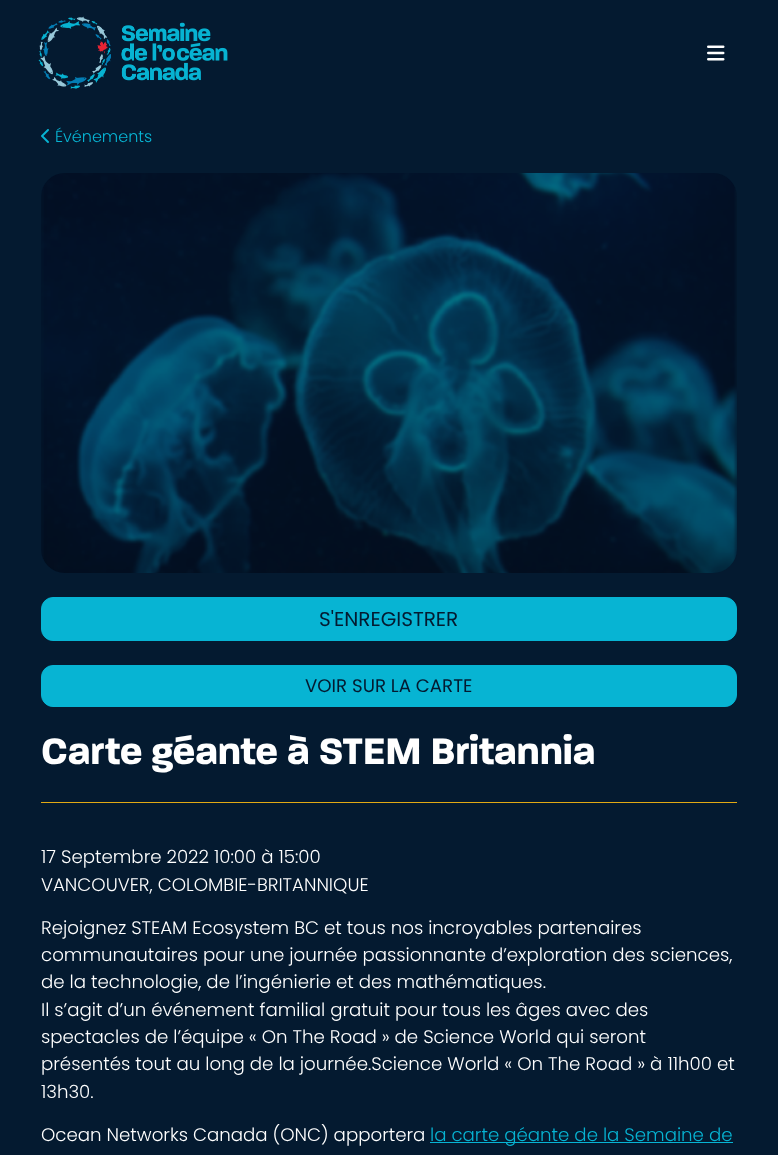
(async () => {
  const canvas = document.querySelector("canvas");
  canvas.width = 778;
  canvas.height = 1155;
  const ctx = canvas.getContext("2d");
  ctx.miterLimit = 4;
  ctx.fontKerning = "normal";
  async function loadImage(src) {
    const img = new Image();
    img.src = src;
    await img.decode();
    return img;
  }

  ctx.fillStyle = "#041a30";
  ctx.fillRect(0, 0, 778, 1155);
  ctx.drawImage(await loadImage("img/1.png"), 38, 16, 190, 74);
  ctx.drawImage(await loadImage("img/2.png"), 707, 45, 18, 16);
  ctx.drawImage(await loadImage("img/3.png"), 41, 129, 8, 14);
  ctx.drawImage(await loadImage("img/4.png"), 41, 173, 696, 400);
  ctx.fillStyle = "#07b4d3";
  ctx.beginPath();
  ctx.roundRect(41.5, 597.5, 695, 43, 11.5);
  ctx.fill();
  ctx.strokeStyle = "#07b4d3";
  ctx.stroke();
  ctx.beginPath();
  ctx.roundRect(41.5, 665.5, 695, 41, 11.5);
  ctx.fill();
  ctx.stroke();
  ctx.fillStyle = "#e2a914";
  ctx.fillRect(41, 802, 696, 1);
  ctx.fillStyle = "#07b4d3";
  ctx.fillRect(430, 1142, 303, 1);
  ctx.font = "300 16px Poppins";
  ctx.fillText("Événements", 55, 142);
  ctx.font = "20px Poppins";
  ctx.fillStyle = "#041a30";
  ctx.fillText("S'ENREGISTRER", 319, 626);
  ctx.font = "18.2px Poppins";
  ctx.fillText("VOIR SUR LA CARTE", 305, 692);
  ctx.font = "bold 39.75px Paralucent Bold";
  ctx.fillStyle = "#ffffff";
  ctx.fillText("Carte géante à STEM Britannia", 41, 764);
  ctx.font = "300 18.2px Poppins";
  for (const [text, x, y] of [
    ["17 Septembre 2022 10:00 à 15:00", 41, 863],
    ["VANCOUVER, COLOMBIE-BRITANNIQUE", 41, 891],
    ["Rejoignez STEAM Ecosystem BC et tous nos incroyables partenaires", 41, 934],
    ["communautaires pour une journée passionnante d’exploration des sciences,", 41, 961],
    ["de la technologie, de l’ingénierie et des mathématiques.", 41, 988],
    ["Il s’agit d’un événement familial gratuit pour tous les âges avec des", 41, 1016],
    ["spectacles de l’équipe « On The Road » de Science World qui seront", 41, 1043],
    ["présentés tout au long de la journée.Science World « On The Road » à 11h00 et", 41, 1070],
    ["13h30.", 41, 1098],
    ["Ocean Networks Canada (ONC) apportera", 41, 1141],
  ]) {
    ctx.fillText(text, x, y);
  }
  ctx.fillStyle = "#07b4d3";
  ctx.fillText("la carte géante de la Semaine de", 430, 1141);
})();
